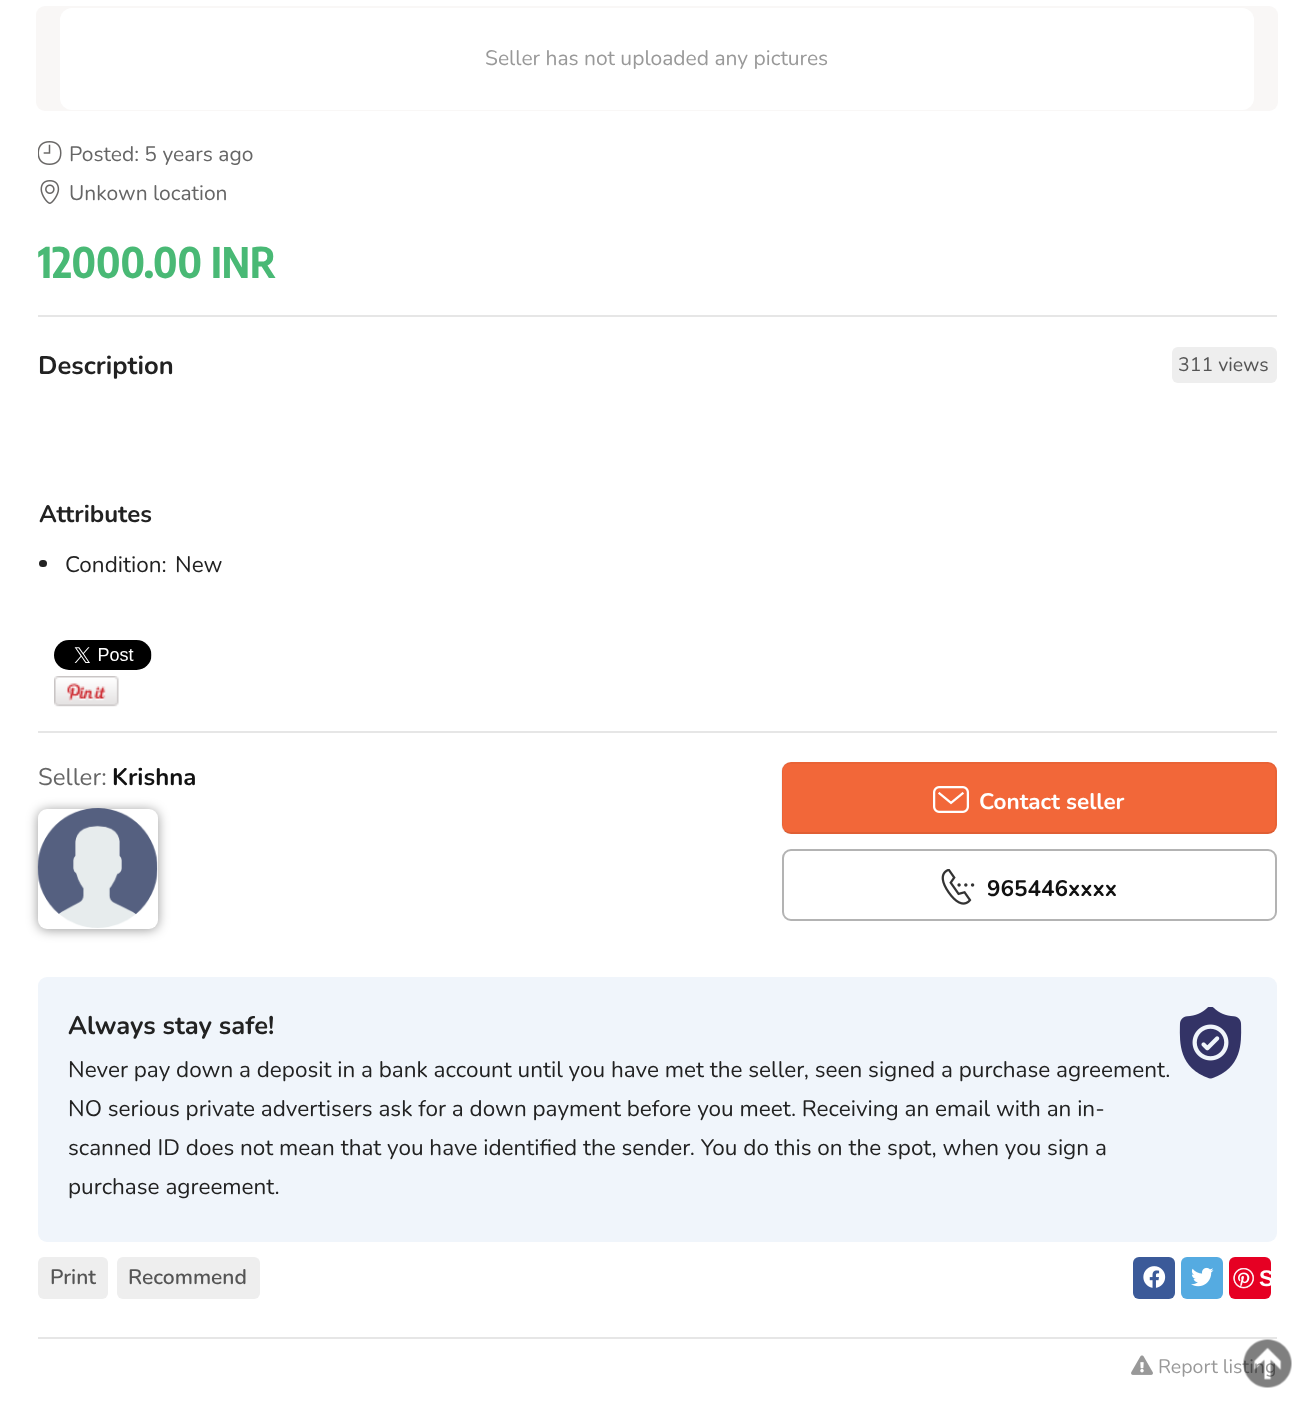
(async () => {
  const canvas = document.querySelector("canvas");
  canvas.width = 1314;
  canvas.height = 1409;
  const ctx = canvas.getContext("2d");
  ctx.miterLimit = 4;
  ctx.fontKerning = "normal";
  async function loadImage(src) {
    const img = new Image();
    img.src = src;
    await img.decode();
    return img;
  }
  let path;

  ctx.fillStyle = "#ffffff";
  ctx.fillRect(0, 0, 1314, 1409);
  ctx.fillStyle = "#f9f7f6";
  ctx.beginPath();
  ctx.roundRect(36, 6, 1242, 105, 9);
  ctx.fill();
  ctx.fillStyle = "#ffffff";
  ctx.beginPath();
  ctx.roundRect(60, 8, 1194, 102, 12);
  ctx.fill();
  ctx.drawImage(await loadImage("img/1.png"), 38, 141, 24, 24);
  ctx.drawImage(await loadImage("img/2.png"), 40, 180, 20, 24);
  ctx.fillStyle = "#e6e6e6";
  ctx.fillRect(38, 315, 1239, 2);
  ctx.fillStyle = "#eeeeee";
  ctx.beginPath();
  ctx.roundRect(1172, 347, 105, 36, 6);
  ctx.fill();
  ctx.fillStyle = "#222222";
  ctx.beginPath();
  ctx.roundRect(39, 560, 8, 7, 3.5);
  ctx.fill();
  ctx.drawImage(await loadImage("img/3.png"), 54, 640, 98, 30);
  ctx.drawImage(await loadImage("img/4.png"), 54, 676, 65, 31);
  ctx.fillStyle = "#e6e6e6";
  ctx.fillRect(38, 731, 1239, 2);
  ctx.fillStyle = "rgba(0, 0, 0, 0.4)";
  ctx.filter = "blur(6px)";
  ctx.beginPath();
  ctx.roundRect(38, 810, 120, 120, 9);
  ctx.fill();
  ctx.filter = "none";
  ctx.fillStyle = "#ffffff";
  ctx.beginPath();
  ctx.roundRect(38, 809, 120, 120, 9);
  ctx.fill();
  ctx.drawImage(await loadImage("img/5.png"), 37, 808, 121, 120);
  ctx.fillStyle = "#f26739";
  ctx.beginPath();
  ctx.roundRect(782, 762, 495, 72, 9);
  ctx.fill();
  path = new Path2D("M1273.5 831C1272 832.5 1269.5 833 1267.5 833H790.5C788.5 833 786 832.5 784.5 831");
  ctx.strokeStyle = "rgba(0, 0, 0, 0.1)";
  ctx.lineWidth = 1.5;
  ctx.stroke(path);
  path = new Path2D("M784.5 831C783 829.5 782 827 782 825V771C782 769 783 766.5 784.5 765C786 763.5 788.5 763 790.5 763H1267.5C1269.5 763 1272 763.5 1273.5 765C1275 766.5 1276 769 1276 771V825C1276 827 1275 829.5 1273.5 831");
  ctx.strokeStyle = "rgba(0, 0, 0, 0.05)";
  ctx.stroke(path);
  ctx.drawImage(await loadImage("img/6.png"), 933, 786, 36, 27);
  ctx.beginPath();
  ctx.roundRect(783, 850, 493, 70, 8);
  ctx.strokeStyle = "#b3b3b3";
  ctx.lineWidth = 2;
  ctx.stroke();
  ctx.drawImage(await loadImage("img/7.png"), 941, 869, 34, 36);
  ctx.fillStyle = "#f0f5fb";
  ctx.beginPath();
  ctx.roundRect(38, 977, 1239, 265, 9);
  ctx.fill();
  ctx.drawImage(await loadImage("img/8.png"), 1179, 1007, 63, 72);
  ctx.fillStyle = "#eeeeee";
  ctx.beginPath();
  ctx.roundRect(38, 1257, 70, 42, 6);
  ctx.fill();
  ctx.beginPath();
  ctx.roundRect(117, 1257, 143, 42, 6);
  ctx.fill();
  ctx.fillStyle = "#3b5a99";
  ctx.beginPath();
  ctx.roundRect(1133, 1257, 42, 42, 6);
  ctx.fill();
  ctx.drawImage(await loadImage("img/9.png"), 1143, 1266, 23, 22);
  ctx.fillStyle = "#55abe1";
  ctx.beginPath();
  ctx.roundRect(1181, 1257, 42, 42, 6);
  ctx.fill();
  ctx.drawImage(await loadImage("img/10.png"), 1191, 1267, 23, 20);
  ctx.fillStyle = "#e60023";
  ctx.beginPath();
  ctx.roundRect(1229, 1257, 42, 42, 6);
  ctx.fill();
  ctx.drawImage(await loadImage("img/11.png"), 1233, 1268, 21, 21);
  ctx.fillStyle = "#e6e6e6";
  ctx.fillRect(38, 1337, 1239, 2);
  ctx.drawImage(await loadImage("img/12.png"), 1131, 1355, 22, 20);
  ctx.font = "21px Nunito";
  ctx.fillStyle = "#999999";
  ctx.fillText("Seller has not uploaded any pictures", 485, 65);
  ctx.fillStyle = "#666666";
  ctx.fillText("Posted: 5 years ago", 69, 161);
  ctx.fillText("Unkown location", 69, 200);
  ctx.font = "bold 42px Encode Sans Condensed";
  ctx.fillStyle = "#49b975";
  ctx.fillText("12000.00 INR", 38, 278);
  ctx.font = "bold 25.5px Nunito";
  ctx.fillStyle = "#222222";
  ctx.fillText("Description", 38, 374);
  ctx.font = "19.5px Nunito";
  ctx.fillStyle = "#555555";
  ctx.fillText("311 views", 1178, 371);
  ctx.font = "bold 24px Nunito";
  ctx.fillStyle = "#222222";
  ctx.fillText("Attributes", 39, 522);
  ctx.font = "22.5px Nunito";
  ctx.fillText("Condition:", 65, 572);
  ctx.fillText("New", 175, 572);
  ctx.font = "24px Nunito";
  ctx.fillStyle = "#666666";
  ctx.fillText("Seller:", 38, 785);
  ctx.font = "bold 24px Nunito";
  ctx.fillStyle = "#111111";
  ctx.fillText("Krishna", 112, 785);
  ctx.font = "bold 22.5px Nunito";
  ctx.fillStyle = "#ffffff";
  ctx.fillText("Contact seller", 979, 809);
  ctx.fillStyle = "#111111";
  ctx.fillText("965446xxxx", 987, 896);
  ctx.font = "bold 25.5px Nunito";
  ctx.fillStyle = "#222222";
  ctx.fillText("Always stay safe!", 68, 1034);
  ctx.font = "22.5px Nunito";
  for (const [text, x, y] of [
    ["Never pay down a deposit in a bank account until you have met the seller, seen signed a purchase agreement.", 68, 1077],
    ["NO serious private advertisers ask for a down payment before you meet. Receiving an email with an in-", 68, 1116],
    ["scanned ID does not mean that you have identified the sender. You do this on the spot, when you sign a", 68, 1155],
    ["purchase agreement.", 68, 1194],
  ]) {
    ctx.fillText(text, x, y);
  }
  ctx.font = "600 21px Nunito";
  ctx.fillStyle = "#555555";
  ctx.fillText("Print", 50, 1284);
  ctx.fillText("Recommend", 128, 1284);
  ctx.font = "bold 22.5px Liberation Sans";
  ctx.fillStyle = "#ffffff";
  ctx.fillText("S", 1259, 1286);
  ctx.font = "19.5px Nunito";
  ctx.fillStyle = "#999999";
  ctx.fillText("Report listing", 1158, 1373);
  ctx.drawImage(await loadImage("img/13.png"), 1243, 1339, 49, 49);
})();
